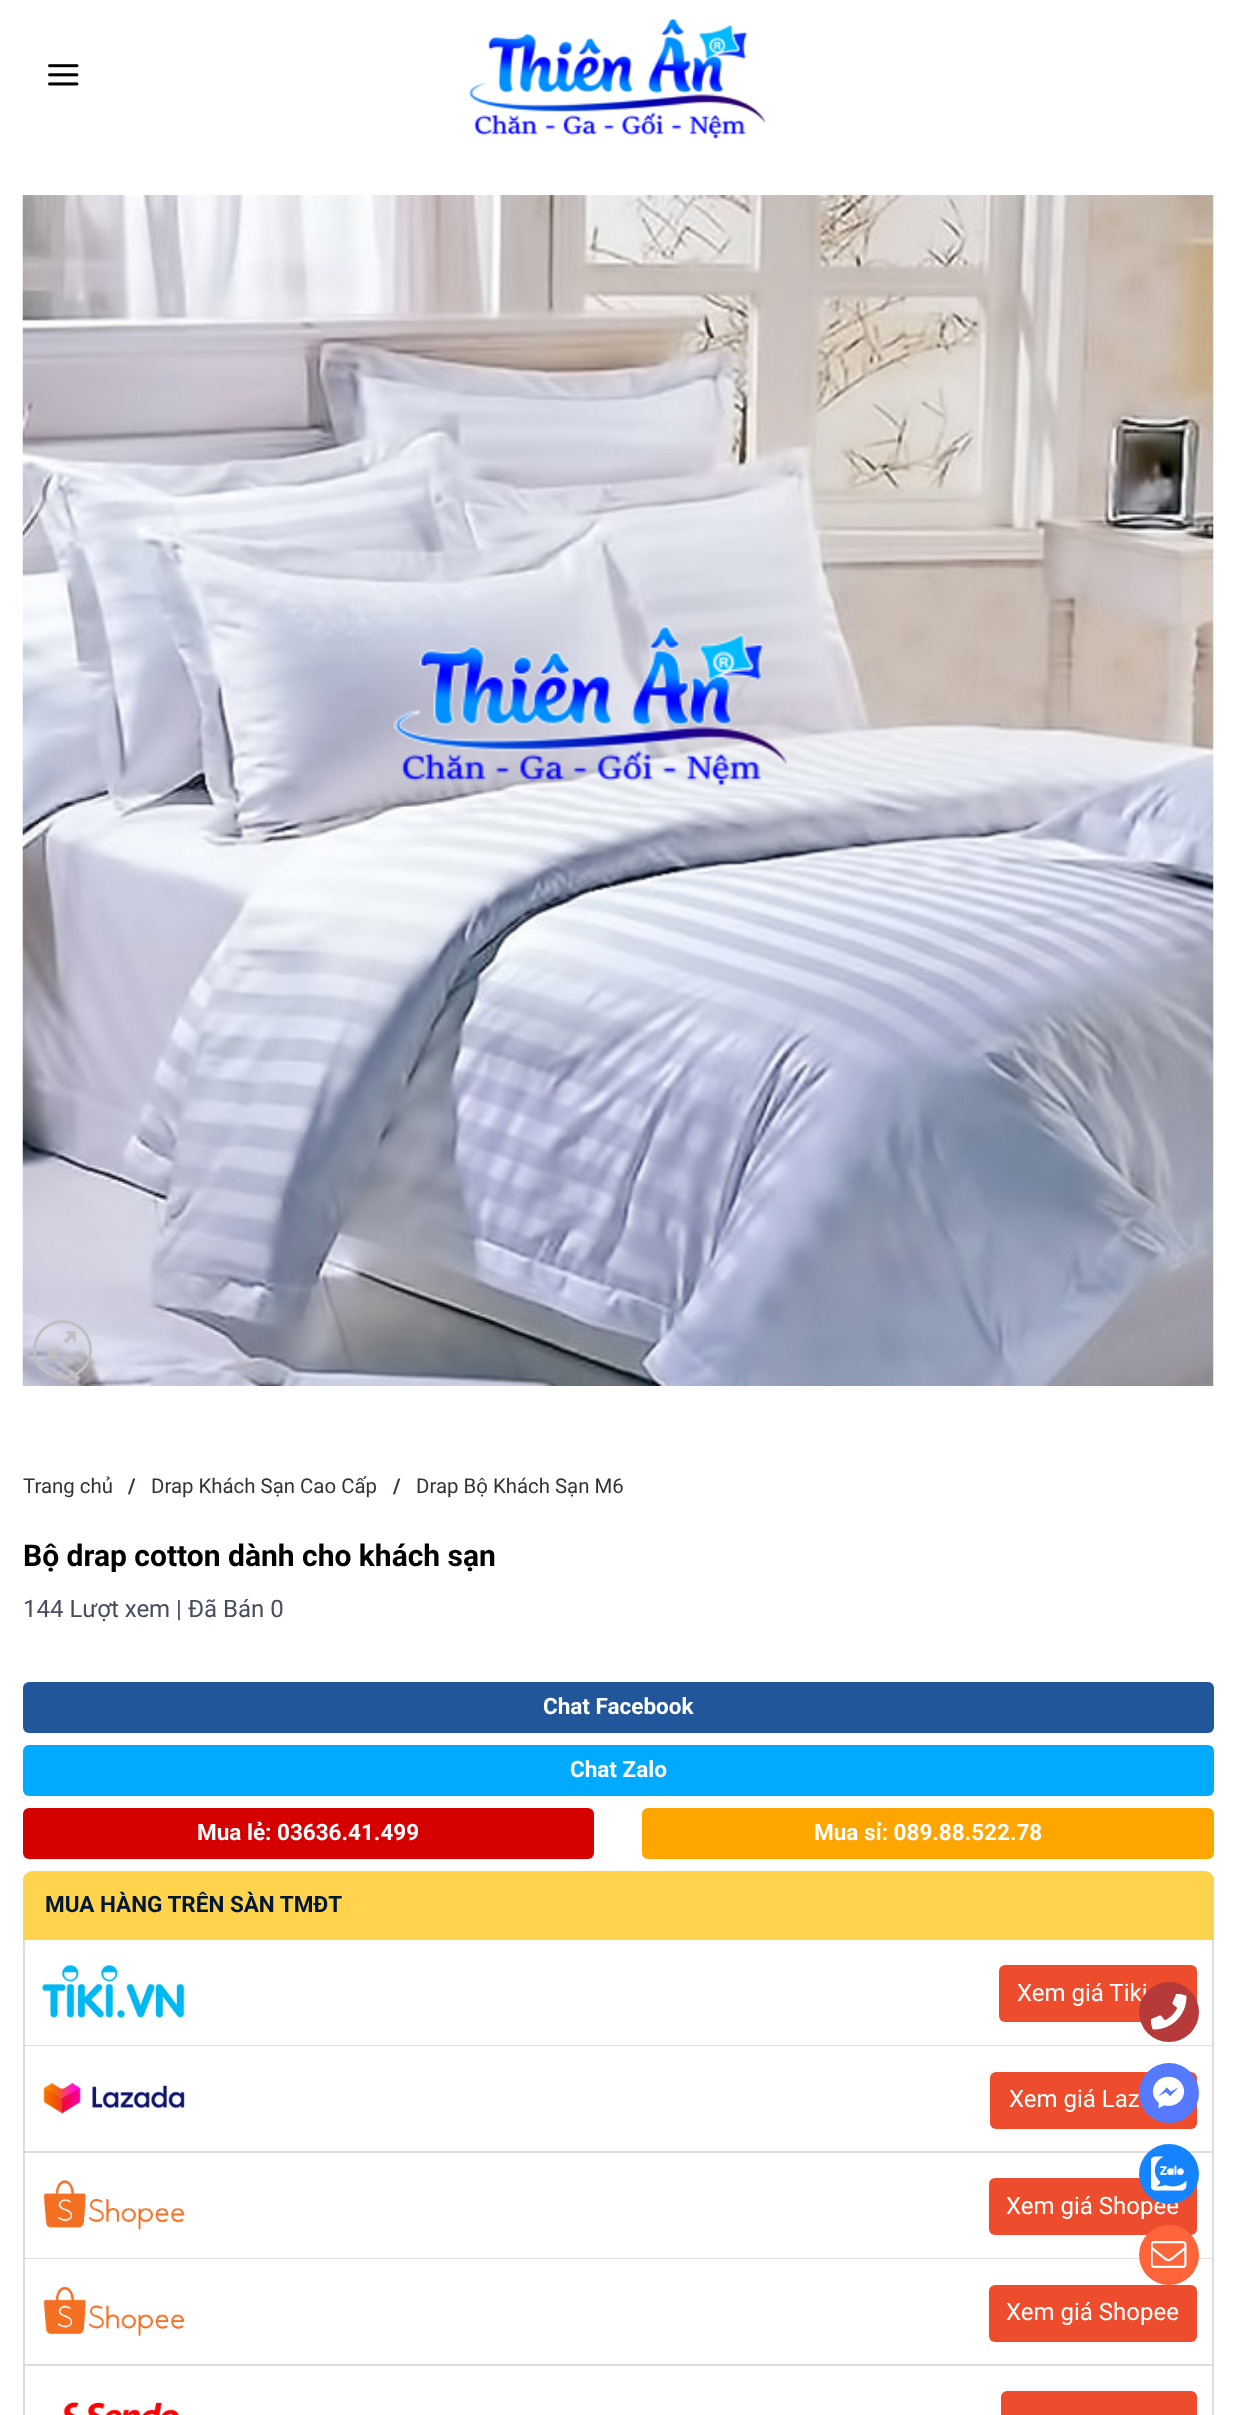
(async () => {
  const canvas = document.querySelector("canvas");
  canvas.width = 1236;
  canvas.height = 2415;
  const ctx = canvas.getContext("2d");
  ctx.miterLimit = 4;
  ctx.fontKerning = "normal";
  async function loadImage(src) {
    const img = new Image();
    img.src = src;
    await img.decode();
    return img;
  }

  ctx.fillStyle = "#ffffff";
  ctx.fillRect(0, 0, 1236, 2415);
  ctx.drawImage(await loadImage("img/1.png"), 48, 64, 31, 22);
  ctx.drawImage(await loadImage("img/2.png"), 468, 18, 299, 121);
  ctx.drawImage(await loadImage("img/3.png"), 22, 195, 1192, 1191);
  ctx.beginPath();
  ctx.arc(62.5, 1349.5, 28, 0, Math.PI * 2);
  ctx.strokeStyle = "#c0c0c0";
  ctx.lineWidth = 3;
  ctx.stroke();
  ctx.drawImage(await loadImage("img/4.png"), 48, 1331, 28, 28);
  ctx.fillStyle = "#21569a";
  ctx.beginPath();
  ctx.roundRect(23, 1682, 1191, 51, 6);
  ctx.fill();
  ctx.fillStyle = "#00abff";
  ctx.beginPath();
  ctx.roundRect(23, 1745, 1191, 51, 6);
  ctx.fill();
  ctx.fillStyle = "#d70000";
  ctx.beginPath();
  ctx.roundRect(23, 1808, 571, 51, 6);
  ctx.fill();
  ctx.fillStyle = "#ffa500";
  ctx.beginPath();
  ctx.roundRect(642, 1808, 572, 51, 6);
  ctx.fill();
  ctx.fillStyle = "#ffd34c";
  ctx.beginPath();
  ctx.roundRect(23, 1871, 1191, 69, [9, 9, 0, 0]);
  ctx.fill();
  for (const [x, y, w, h, color] of [
    [1212, 1940, 2, 475, "#dddddd"],
    [23, 2045, 1191, 1, "#dddddd"],
    [23, 1940, 2, 106, "#dddddd"],
  ]) {
    ctx.fillStyle = color;
    ctx.fillRect(x, y, w, h);
  }
  ctx.drawImage(await loadImage("img/5.png"), 42, 1965, 143, 53);
  ctx.fillStyle = "#ee4d2d";
  ctx.beginPath();
  ctx.roundRect(999, 1965, 198, 57, 6);
  ctx.fill();
  ctx.fillStyle = "#dddddd";
  ctx.fillRect(23, 2151, 1191, 2);
  ctx.fillRect(23, 2046, 2, 107);
  ctx.drawImage(await loadImage("img/6.png"), 43, 2082, 142, 32);
  ctx.fillStyle = "#ee4d2d";
  ctx.beginPath();
  ctx.roundRect(990, 2072, 207, 57, 6);
  ctx.fill();
  ctx.fillStyle = "#dddddd";
  ctx.fillRect(23, 2258, 1191, 1);
  ctx.fillRect(23, 2153, 2, 106);
  ctx.drawImage(await loadImage("img/7.png"), 43, 2180, 142, 50);
  ctx.fillStyle = "#ee4d2d";
  ctx.beginPath();
  ctx.roundRect(989, 2178, 208, 57, 6);
  ctx.fill();
  ctx.fillStyle = "#dddddd";
  ctx.fillRect(23, 2364, 1191, 2);
  ctx.fillRect(23, 2259, 2, 156);
  ctx.drawImage(await loadImage("img/8.png"), 43, 2286, 142, 51);
  ctx.fillStyle = "#ee4d2d";
  ctx.beginPath();
  ctx.roundRect(989, 2285, 208, 57, 6);
  ctx.fill();
  ctx.drawImage(await loadImage("img/9.png"), 63, 2402, 116, 13);
  ctx.beginPath();
  ctx.roundRect(1001, 2391, 196, 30, 6);
  ctx.fill();
  ctx.fillStyle = "#567aff";
  ctx.beginPath();
  ctx.arc(1169, 2093, 30, 0, Math.PI * 2);
  ctx.fill();
  ctx.drawImage(await loadImage("img/11.png"), 1152, 2076, 33, 33);
  ctx.fillStyle = "#ff643a";
  ctx.beginPath();
  ctx.arc(1169, 2255, 30, 0, Math.PI * 2);
  ctx.fill();
  ctx.drawImage(await loadImage("img/13.png"), 1151, 2241, 36, 27);
  ctx.font = "20.4px Roboto";
  ctx.fillStyle = "#333333";
  ctx.fillText("Trang chủ", 23, 1493);
  ctx.font = "bold 20.4px Roboto";
  ctx.fillStyle = "#323c3f";
  ctx.fillText("/", 128, 1493);
  ctx.font = "20.4px Roboto";
  ctx.fillStyle = "#333333";
  ctx.fillText("Drap Khách Sạn Cao Cấp", 151, 1493);
  ctx.font = "bold 20.4px Roboto";
  ctx.fillStyle = "#323c3f";
  ctx.fillText("/", 393, 1493);
  ctx.font = "20.4px Roboto";
  ctx.fillStyle = "#333333";
  ctx.fillText("Drap Bộ Khách Sạn M6", 416, 1493);
  ctx.font = "bold 30px Roboto";
  ctx.fillStyle = "#000000";
  ctx.fillText("Bộ drap cotton dành cho khách sạn", 23, 1566);
  ctx.font = "24px Roboto";
  ctx.fillStyle = "#474c5f";
  ctx.fillText("144 Lượt xem | Đã Bán 0", 23, 1617);
  ctx.font = "bold 22.5px Roboto";
  ctx.fillStyle = "#ffffff";
  for (const [text, x, y] of [
    ["Chat Facebook", 543, 1714],
    ["Chat Zalo", 570, 1777],
    ["Mua lẻ: 03636.41.499", 197, 1840],
    ["Mua sỉ: 089.88.522.78", 814, 1840],
  ]) {
    ctx.fillText(text, x, y);
  }
  ctx.fillStyle = "#001735";
  ctx.fillText("MUA HÀNG TRÊN SÀN TMĐT", 45, 1912);
  ctx.font = "24px Roboto";
  ctx.fillStyle = "#ffffff";
  for (const [text, x, y] of [
    ["Xem giá Tiki", 1017, 2001],
    ["Xem giá Laz", 1009, 2107],
    ["Xem giá Shopee", 1006, 2214],
    ["Xem giá Shopee", 1006, 2320],
  ]) {
    ctx.fillText(text, x, y);
  }
  ctx.fillStyle = "#b63a3a";
  ctx.beginPath();
  ctx.arc(1169, 2012, 30, 0, Math.PI * 2);
  ctx.fill();
  ctx.drawImage(await loadImage("img/10.png"), 1151, 1994, 36, 36);
  ctx.fillStyle = "#1684ff";
  ctx.beginPath();
  ctx.arc(1169, 2174, 30, 0, Math.PI * 2);
  ctx.fill();
  ctx.drawImage(await loadImage("img/12.png"), 1151, 2156, 36, 35);
})();
